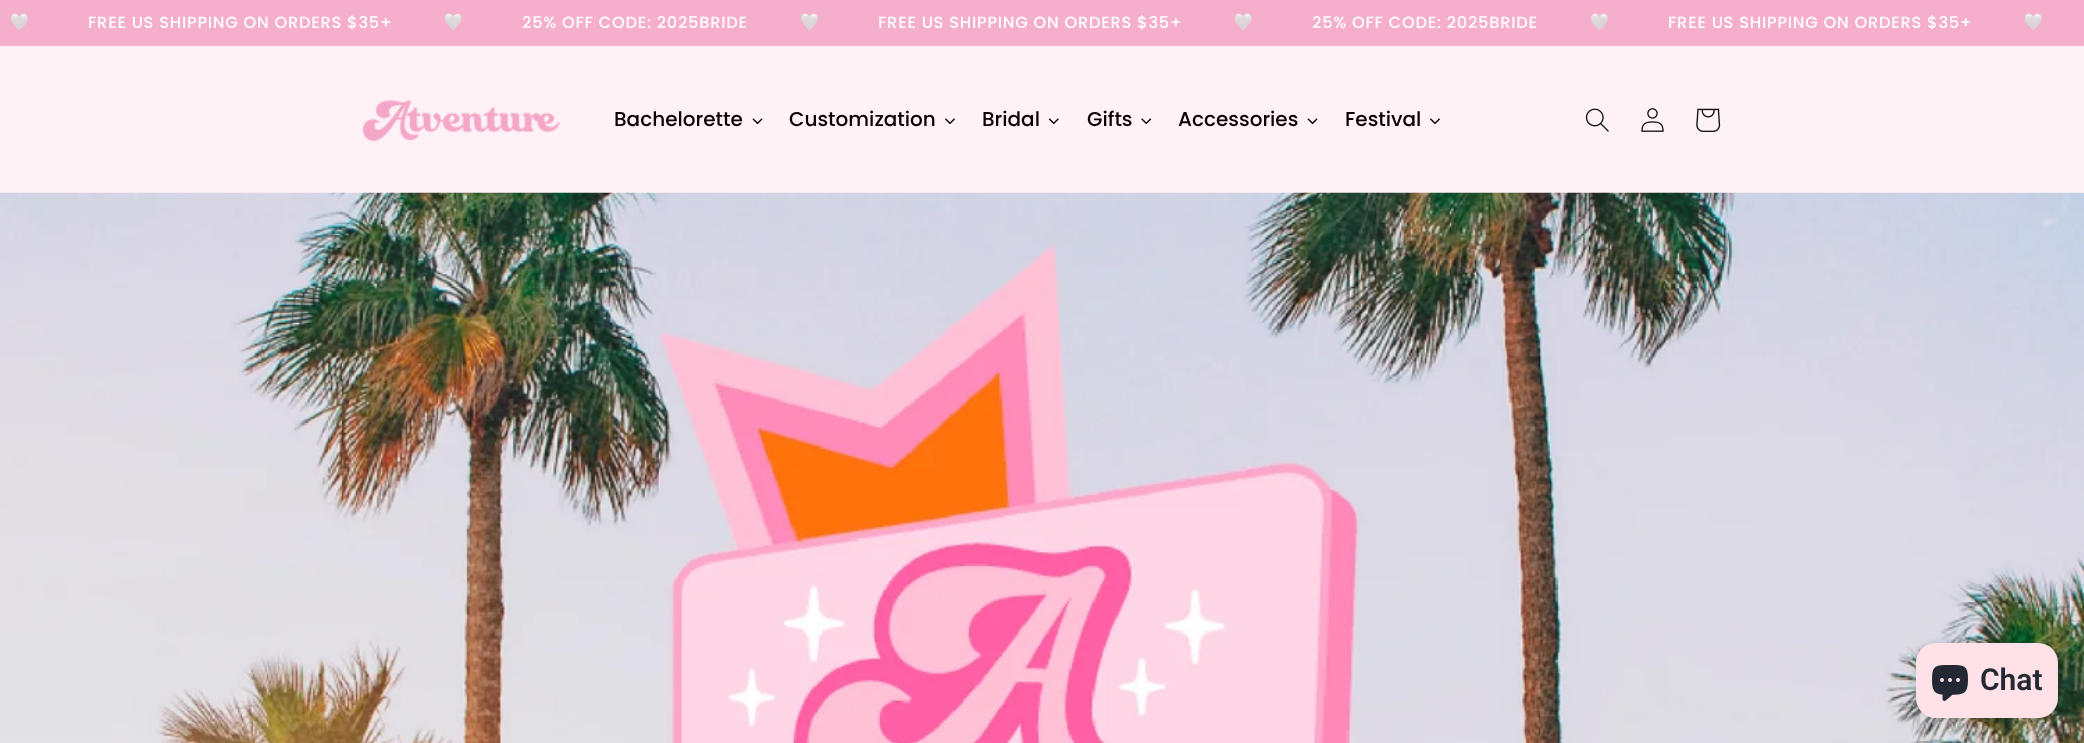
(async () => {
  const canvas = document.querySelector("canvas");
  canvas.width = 2084;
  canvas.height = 743;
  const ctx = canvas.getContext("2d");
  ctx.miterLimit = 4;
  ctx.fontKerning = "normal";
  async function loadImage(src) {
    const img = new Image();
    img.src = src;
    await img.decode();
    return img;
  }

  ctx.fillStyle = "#fef2f6";
  ctx.fillRect(0, 0, 2084, 743);
  ctx.fillStyle = "#f6aecd";
  ctx.fillRect(0, 0, 2084, 46);
  ctx.drawImage(await loadImage("img/1.png"), 11, 13, 17, 18);
  ctx.drawImage(await loadImage("img/2.png"), 444, 13, 18, 18);
  ctx.drawImage(await loadImage("img/3.png"), 800, 13, 19, 18);
  ctx.drawImage(await loadImage("img/2.png"), 1234, 13, 18, 18);
  ctx.drawImage(await loadImage("img/3.png"), 1590, 13, 19, 18);
  ctx.drawImage(await loadImage("img/4.png"), 2024, 13, 18, 18);
  ctx.drawImage(await loadImage("img/5.png"), 362, 100, 199, 42);
  ctx.drawImage(await loadImage("img/6.png"), 752, 118, 11, 6);
  ctx.drawImage(await loadImage("img/7.png"), 945, 118, 10, 6);
  ctx.drawImage(await loadImage("img/8.png"), 1048, 118, 11, 6);
  ctx.drawImage(await loadImage("img/9.png"), 1141, 118, 11, 6);
  ctx.drawImage(await loadImage("img/6.png"), 1307, 118, 11, 6);
  ctx.drawImage(await loadImage("img/7.png"), 1430, 118, 10, 6);
  ctx.drawImage(await loadImage("img/10.png"), 1585, 108, 24, 24);
  ctx.drawImage(await loadImage("img/11.png"), 1641, 108, 23, 24);
  ctx.drawImage(await loadImage("img/12.png"), 1696, 108, 25, 24);
  ctx.drawImage(await loadImage("img/13.png"), 0, 192, 2084, 551);
  ctx.fillStyle = "rgba(0, 0, 0, 0.15)";
  ctx.filter = "blur(3px)";
  ctx.beginPath();
  ctx.roundRect(1916, 643, 142, 75, 20);
  ctx.fill();
  ctx.filter = "none";
  ctx.fillStyle = "#ffe2e8";
  ctx.beginPath();
  ctx.roundRect(1916, 643, 142, 75, 20);
  ctx.fill();
  ctx.drawImage(await loadImage("img/14.png"), 1932, 665, 36, 36);
  ctx.letterSpacing = "0.75px";
  ctx.font = "500 16.25px 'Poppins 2'";
  ctx.fillStyle = "#fffefe";
  for (const [text, x, y] of [
    ["FREE US SHIPPING ON ORDERS $35+", 88, 28],
    ["25% OFF CODE: 2025BRIDE", 522, 28],
    ["FREE US SHIPPING ON ORDERS $35+", 878, 28],
    ["25% OFF CODE: 2025BRIDE", 1312, 28],
    ["FREE US SHIPPING ON ORDERS $35+", 1668, 28],
  ]) {
    ctx.fillText(text, x, y);
  }
  ctx.letterSpacing = "0px";
  ctx.font = "500 20px Poppins";
  ctx.fillStyle = "#0a0000";
  for (const [text, x, y] of [
    ["Bachelorette", 614, 126],
    ["Customization", 789, 126],
    ["Bridal", 982, 126],
    ["Gifts", 1087, 126],
    ["Accessories", 1178, 126],
    ["Festival", 1345, 126],
  ]) {
    ctx.fillText(text, x, y);
  }
  ctx.font = "600 30px Roboto";
  ctx.fillStyle = "#242833";
  ctx.fillText("Chat", 1980, 690);
})();
